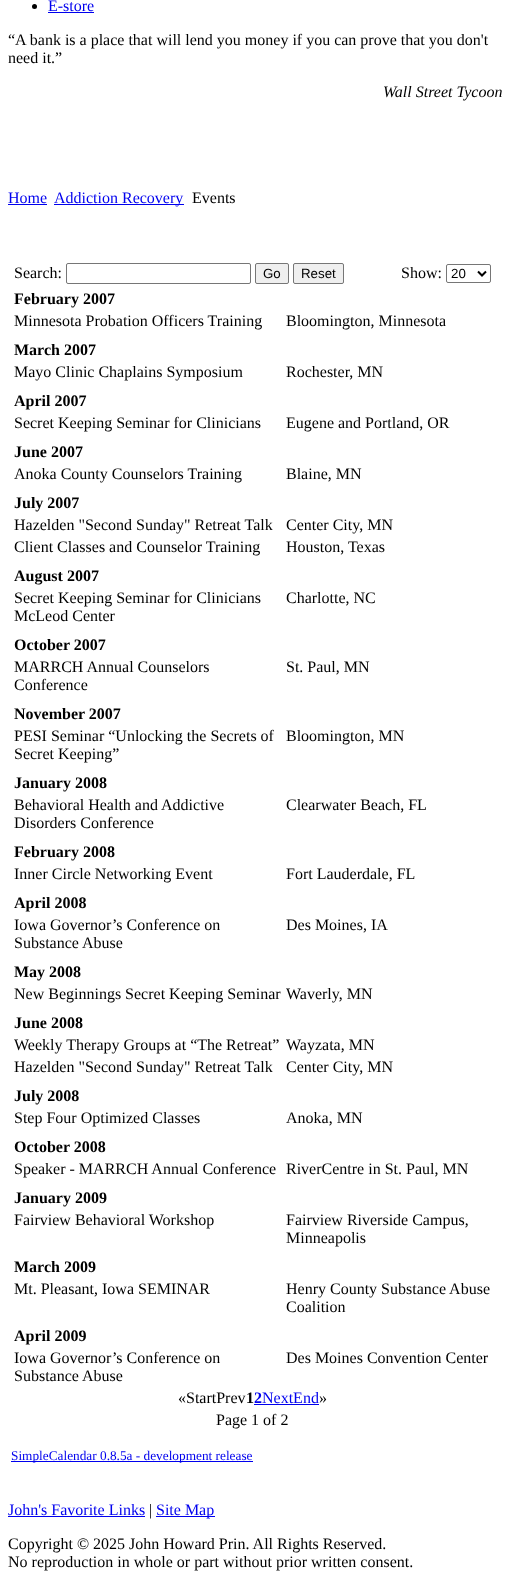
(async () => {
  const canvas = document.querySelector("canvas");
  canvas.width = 510;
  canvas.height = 1580;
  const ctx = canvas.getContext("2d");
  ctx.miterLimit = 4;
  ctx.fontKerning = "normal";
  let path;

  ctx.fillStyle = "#ffffff";
  ctx.fillRect(0, 0, 510, 1580);
  ctx.fillStyle = "#000000";
  ctx.beginPath();
  ctx.arc(34.5, 6.5, 2.5, 0, Math.PI * 2);
  ctx.fill();
  for (const [x, y, w, h, color] of [
    [48, 12, 46, 1, "#0000ee"],
    [8, 204, 39, 1, "#0000ee"],
    [54, 204, 130, 1, "#0000ee"],
  ]) {
    ctx.fillStyle = color;
    ctx.fillRect(x, y, w, h);
  }
  ctx.beginPath();
  ctx.roundRect(66.5, 263.5, 184, 20, 1.5);
  ctx.strokeStyle = "#767676";
  ctx.stroke();
  ctx.fillStyle = "#efefef";
  ctx.beginPath();
  ctx.roundRect(255.5, 263.5, 33, 20, 1.5);
  ctx.fill();
  ctx.stroke();
  ctx.beginPath();
  ctx.roundRect(293.5, 263.5, 50, 20, 1.5);
  ctx.fill();
  ctx.stroke();
  ctx.beginPath();
  ctx.roundRect(446.5, 264.5, 44, 18, 1.5);
  ctx.stroke();
  path = new Path2D("M478 271.5L482 275.5L486 271.5");
  ctx.strokeStyle = "#000000";
  ctx.lineWidth = 2;
  ctx.stroke(path);
  for (const [x, y, w, h, color] of [
    [254, 1404, 65, 1, "#0000ee"],
    [11, 1461, 242, 1, "#0000ee"],
    [8, 1516, 137, 1, "#0000ee"],
    [156, 1516, 59, 1, "#0000ee"],
  ]) {
    ctx.fillStyle = color;
    ctx.fillRect(x, y, w, h);
  }
  ctx.font = "16px Liberation Serif";
  ctx.fillText("E-store", 48, 11);
  ctx.fillStyle = "#000000";
  ctx.fillText("“A bank is a place that will lend you money if you can prove that you don't", 8, 45);
  ctx.fillText("need it.”", 8, 63);
  ctx.font = "italic 16px Liberation Serif";
  ctx.fillText("Wall Street Tycoon", 383, 97);
  ctx.font = "16px Liberation Serif";
  ctx.fillStyle = "#0000ee";
  ctx.fillText("Home", 8, 203);
  ctx.fillText("Addiction Recovery", 54, 203);
  ctx.fillStyle = "#000000";
  ctx.fillText("Events", 192, 203);
  ctx.fillText("Search:", 14, 278);
  ctx.font = "13.3px Liberation Sans";
  ctx.fillText("Go", 263, 278);
  ctx.fillText("Reset", 301, 278);
  ctx.font = "16px Liberation Serif";
  ctx.fillText("Show:", 401, 278);
  ctx.font = "13.3px Liberation Sans";
  ctx.fillText("20", 451, 278);
  ctx.font = "bold 16px Liberation Serif";
  ctx.fillText("February 2007", 14, 304);
  ctx.font = "16px Liberation Serif";
  ctx.fillText("Minnesota Probation Officers Training", 14, 326);
  ctx.fillText("Bloomington, Minnesota", 286, 326);
  ctx.font = "bold 16px Liberation Serif";
  ctx.fillText("March 2007", 14, 355);
  ctx.font = "16px Liberation Serif";
  ctx.fillText("Mayo Clinic Chaplains Symposium", 14, 377);
  ctx.fillText("Rochester, MN", 286, 377);
  ctx.font = "bold 16px Liberation Serif";
  ctx.fillText("April 2007", 14, 406);
  ctx.font = "16px Liberation Serif";
  ctx.fillText("Secret Keeping Seminar for Clinicians", 14, 428);
  ctx.fillText("Eugene and Portland, OR", 286, 428);
  ctx.font = "bold 16px Liberation Serif";
  ctx.fillText("June 2007", 14, 457);
  ctx.font = "16px Liberation Serif";
  ctx.fillText("Anoka County Counselors Training", 14, 479);
  ctx.fillText("Blaine, MN", 286, 479);
  ctx.font = "bold 16px Liberation Serif";
  ctx.fillText("July 2007", 14, 508);
  ctx.font = "16px Liberation Serif";
  for (const [text, x, y] of [
    ["Hazelden \"Second Sunday\" Retreat Talk", 14, 530],
    ["Center City, MN", 286, 530],
    ["Client Classes and Counselor Training", 14, 552],
    ["Houston, Texas", 286, 552],
  ]) {
    ctx.fillText(text, x, y);
  }
  ctx.font = "bold 16px Liberation Serif";
  ctx.fillText("August 2007", 14, 581);
  ctx.font = "16px Liberation Serif";
  for (const [text, x, y] of [
    ["Secret Keeping Seminar for Clinicians", 14, 603],
    ["McLeod Center", 14, 621],
    ["Charlotte, NC", 286, 603],
  ]) {
    ctx.fillText(text, x, y);
  }
  ctx.font = "bold 16px Liberation Serif";
  ctx.fillText("October 2007", 14, 650);
  ctx.font = "16px Liberation Serif";
  for (const [text, x, y] of [
    ["MARRCH Annual Counselors", 14, 672],
    ["Conference", 14, 690],
    ["St. Paul, MN", 286, 672],
  ]) {
    ctx.fillText(text, x, y);
  }
  ctx.font = "bold 16px Liberation Serif";
  ctx.fillText("November 2007", 14, 719);
  ctx.font = "16px Liberation Serif";
  for (const [text, x, y] of [
    ["PESI Seminar “Unlocking the Secrets of", 14, 741],
    ["Secret Keeping”", 14, 759],
    ["Bloomington, MN", 286, 741],
  ]) {
    ctx.fillText(text, x, y);
  }
  ctx.font = "bold 16px Liberation Serif";
  ctx.fillText("January 2008", 14, 788);
  ctx.font = "16px Liberation Serif";
  for (const [text, x, y] of [
    ["Behavioral Health and Addictive", 14, 810],
    ["Disorders Conference", 14, 828],
    ["Clearwater Beach, FL", 286, 810],
  ]) {
    ctx.fillText(text, x, y);
  }
  ctx.font = "bold 16px Liberation Serif";
  ctx.fillText("February 2008", 14, 857);
  ctx.font = "16px Liberation Serif";
  ctx.fillText("Inner Circle Networking Event", 14, 879);
  ctx.fillText("Fort Lauderdale, FL", 286, 879);
  ctx.font = "bold 16px Liberation Serif";
  ctx.fillText("April 2008", 14, 908);
  ctx.font = "16px Liberation Serif";
  for (const [text, x, y] of [
    ["Iowa Governor’s Conference on", 14, 930],
    ["Substance Abuse", 14, 948],
    ["Des Moines, IA", 286, 930],
  ]) {
    ctx.fillText(text, x, y);
  }
  ctx.font = "bold 16px Liberation Serif";
  ctx.fillText("May 2008", 14, 977);
  ctx.font = "16px Liberation Serif";
  ctx.fillText("New Beginnings Secret Keeping Seminar", 14, 999);
  ctx.fillText("Waverly, MN", 286, 999);
  ctx.font = "bold 16px Liberation Serif";
  ctx.fillText("June 2008", 14, 1028);
  ctx.font = "16px Liberation Serif";
  for (const [text, x, y] of [
    ["Weekly Therapy Groups at “The Retreat”", 14, 1050],
    ["Wayzata, MN", 286, 1050],
    ["Hazelden \"Second Sunday\" Retreat Talk", 14, 1072],
    ["Center City, MN", 286, 1072],
  ]) {
    ctx.fillText(text, x, y);
  }
  ctx.font = "bold 16px Liberation Serif";
  ctx.fillText("July 2008", 14, 1101);
  ctx.font = "16px Liberation Serif";
  ctx.fillText("Step Four Optimized Classes", 14, 1123);
  ctx.fillText("Anoka, MN", 286, 1123);
  ctx.font = "bold 16px Liberation Serif";
  ctx.fillText("October 2008", 14, 1152);
  ctx.font = "16px Liberation Serif";
  ctx.fillText("Speaker - MARRCH Annual Conference", 14, 1174);
  ctx.fillText("RiverCentre in St. Paul, MN", 286, 1174);
  ctx.font = "bold 16px Liberation Serif";
  ctx.fillText("January 2009", 14, 1203);
  ctx.font = "16px Liberation Serif";
  for (const [text, x, y] of [
    ["Fairview Behavioral Workshop", 14, 1225],
    ["Fairview Riverside Campus,", 286, 1225],
    ["Minneapolis", 286, 1243],
  ]) {
    ctx.fillText(text, x, y);
  }
  ctx.font = "bold 16px Liberation Serif";
  ctx.fillText("March 2009", 14, 1272);
  ctx.font = "16px Liberation Serif";
  for (const [text, x, y] of [
    ["Mt. Pleasant, Iowa SEMINAR", 14, 1294],
    ["Henry County Substance Abuse", 286, 1294],
    ["Coalition", 286, 1312],
  ]) {
    ctx.fillText(text, x, y);
  }
  ctx.font = "bold 16px Liberation Serif";
  ctx.fillText("April 2009", 14, 1341);
  ctx.font = "16px Liberation Serif";
  for (const [text, x, y] of [
    ["Iowa Governor’s Conference on", 14, 1363],
    ["Substance Abuse", 14, 1381],
    ["Des Moines Convention Center", 286, 1363],
    ["«StartPrev", 178, 1403],
  ]) {
    ctx.fillText(text, x, y);
  }
  ctx.font = "bold 16px Liberation Serif";
  ctx.fillText("1", 246, 1403);
  ctx.fillStyle = "#0000ee";
  ctx.fillText("2", 254, 1403);
  ctx.font = "16px Liberation Serif";
  ctx.fillText("NextEnd", 262, 1403);
  ctx.fillStyle = "#000000";
  ctx.fillText("»", 319, 1403);
  ctx.fillText("Page 1 of 2", 216, 1425);
  ctx.font = "13.3px Liberation Serif";
  ctx.fillStyle = "#0000ee";
  ctx.fillText("SimpleCalendar 0.8.5a - development release", 11, 1460);
  ctx.font = "16px Liberation Serif";
  ctx.fillText("John's Favorite Links", 8, 1515);
  ctx.fillStyle = "#000000";
  ctx.fillText("|", 149, 1515);
  ctx.fillStyle = "#0000ee";
  ctx.fillText("Site Map", 156, 1515);
  ctx.fillStyle = "#000000";
  ctx.fillText("Copyright © 2025 John Howard Prin. All Rights Reserved.", 8, 1549);
  ctx.fillText("No reproduction in whole or part without prior written consent.", 8, 1567);
})();
